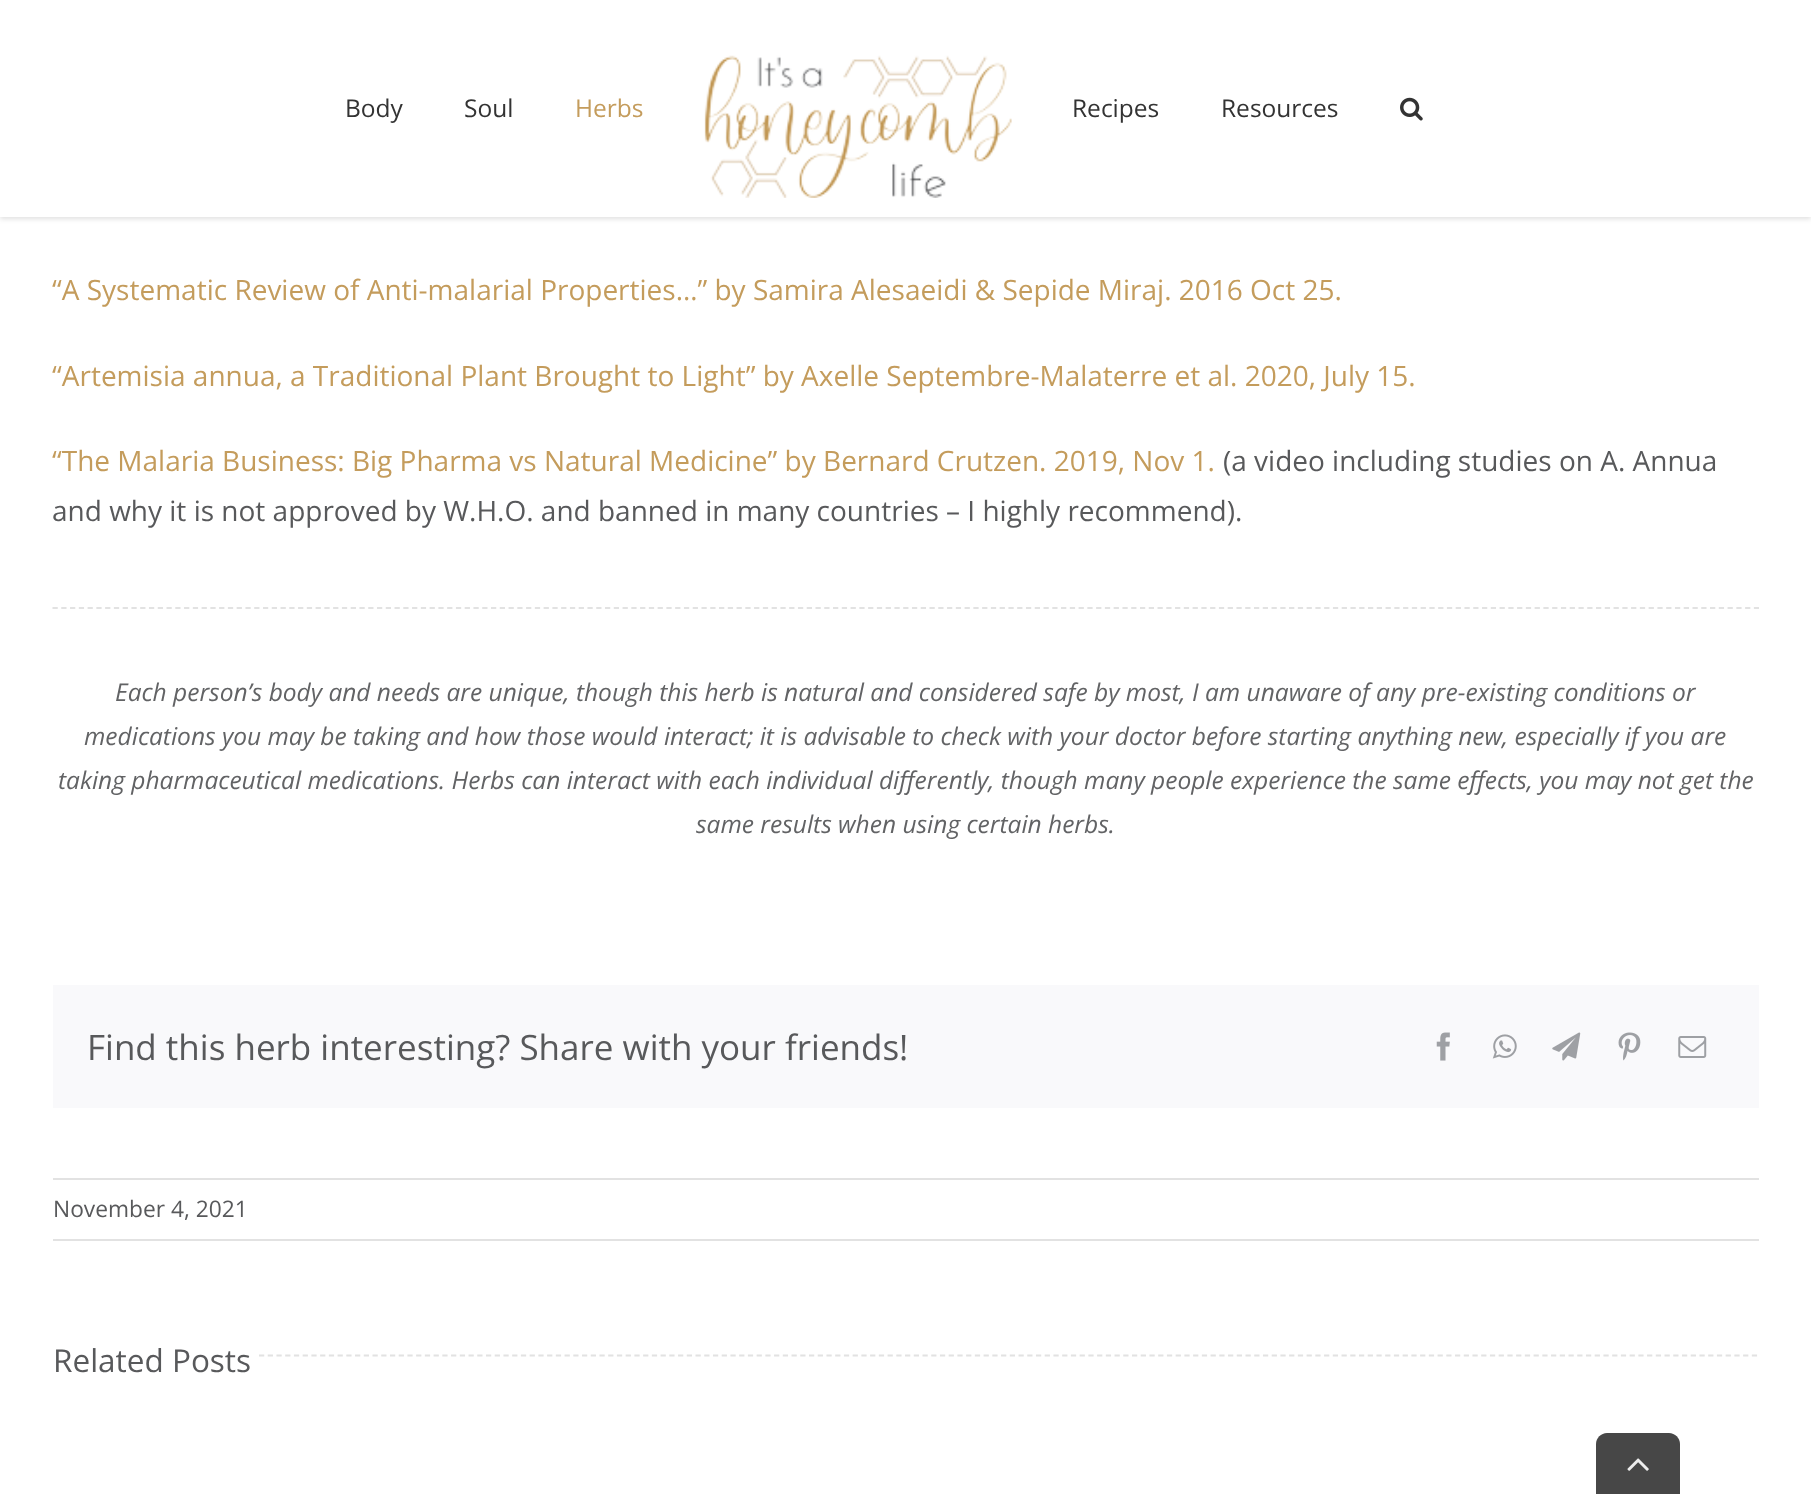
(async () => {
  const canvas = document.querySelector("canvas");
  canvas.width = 1811;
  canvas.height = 1494;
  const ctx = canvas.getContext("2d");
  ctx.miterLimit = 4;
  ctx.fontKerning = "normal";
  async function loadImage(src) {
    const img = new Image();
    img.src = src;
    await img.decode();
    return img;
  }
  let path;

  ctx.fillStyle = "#ffffff";
  ctx.fillRect(0, 0, 1811, 1494);
  ctx.fillStyle = "rgba(0, 0, 0, 0.12)";
  ctx.filter = "blur(2.5px)";
  ctx.beginPath();
  ctx.rect(0, 2, 1811, 217);
  ctx.fill();
  ctx.filter = "none";
  ctx.fillStyle = "#ffffff";
  ctx.fillRect(0, 0, 1811, 217);
  ctx.drawImage(await loadImage("img/1.png"), 704, 55, 308, 143);
  ctx.drawImage(await loadImage("img/2.png"), 1400, 97, 23, 24);
  path = new Path2D("M52.5 608H1759");
  ctx.strokeStyle = "#e2e2e2";
  ctx.lineWidth = 1.8;
  ctx.setLineDash([5.25, 3.52]);
  ctx.stroke(path);
  ctx.fillStyle = "#f9f9fb";
  ctx.fillRect(53, 985, 1706, 123);
  ctx.drawImage(await loadImage("img/3.png"), 1436, 1032, 14, 29);
  ctx.drawImage(await loadImage("img/4.png"), 1492, 1034, 25, 25);
  ctx.drawImage(await loadImage("img/5.png"), 1552, 1032, 29, 29);
  ctx.drawImage(await loadImage("img/6.png"), 1618, 1032, 23, 29);
  ctx.drawImage(await loadImage("img/7.png"), 1678, 1036, 29, 22);
  ctx.fillStyle = "#e2e2e2";
  ctx.fillRect(53, 1178, 1706, 2);
  ctx.fillRect(53, 1239, 1706, 2);
  path = new Path2D("M259 1355.5H1759");
  ctx.setLineDash([5.25, 3.48]);
  ctx.stroke(path);
  ctx.fillStyle = "#474747";
  path = new Path2D("M1607 1433H1669C1675 1433 1680 1438 1680 1444V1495H1596V1444C1596 1438 1601 1433 1607 1433Z");
  ctx.fill(path);
  ctx.drawImage(await loadImage("img/8.png"), 1627, 1458, 22, 13);
  ctx.font = "24.5px Open Sans";
  ctx.fillStyle = "#333333";
  ctx.fillText("Body", 345, 117);
  ctx.fillText("Soul", 464, 117);
  ctx.fillStyle = "#c49c5c";
  ctx.fillText("Herbs", 575, 117);
  ctx.fillStyle = "#333333";
  ctx.fillText("Recipes", 1072, 117);
  ctx.fillText("Resources", 1221, 117);
  ctx.font = "28px Open Sans";
  ctx.fillStyle = "#c49c5c";
  for (const [text, x, y] of [
    ["“A Systematic Review of Anti-malarial Properties…” by Samira Alesaeidi & Sepide Miraj. 2016 Oct 25.", 52, 300],
    ["“Artemisia annua, a Traditional Plant Brought to Light” by Axelle Septembre-Malaterre et al. 2020, July 15.", 52, 386],
    ["“The Malaria Business: Big Pharma vs Natural Medicine” by Bernard Crutzen. 2019, Nov 1.", 52, 471],
  ]) {
    ctx.fillText(text, x, y);
  }
  ctx.fillStyle = "#58595b";
  ctx.fillText("(a video including studies on A. Annua", 1223, 471);
  ctx.fillText("and why it is not approved by W.H.O. and banned in many countries – I highly recommend).", 52, 521);
  ctx.font = "italic 24.5px Open Sans";
  ctx.fillStyle = "#626365";
  for (const [text, x, y] of [
    ["Each person’s body and needs are unique, though this herb is natural and considered safe by most, I am unaware of any pre-existing conditions or", 115, 701],
    ["medications you may be taking and how those would interact; it is advisable to check with your doctor before starting anything new, especially if you are", 84, 745],
    ["taking pharmaceutical medications. Herbs can interact with each individual differently, though many people experience the same effects, you may not get the", 58, 789],
    ["same results when using certain herbs.", 696, 833],
  ]) {
    ctx.fillText(text, x, y);
  }
  ctx.font = "35px Open Sans";
  ctx.fillStyle = "#58595b";
  ctx.fillText("Find this herb interesting? Share with your friends!", 87, 1060);
  ctx.font = "22.75px Open Sans";
  ctx.fillText("November 4, 2021", 53, 1217);
  ctx.font = "31.5px Open Sans";
  ctx.fillText("Related Posts", 53, 1372);
})();
